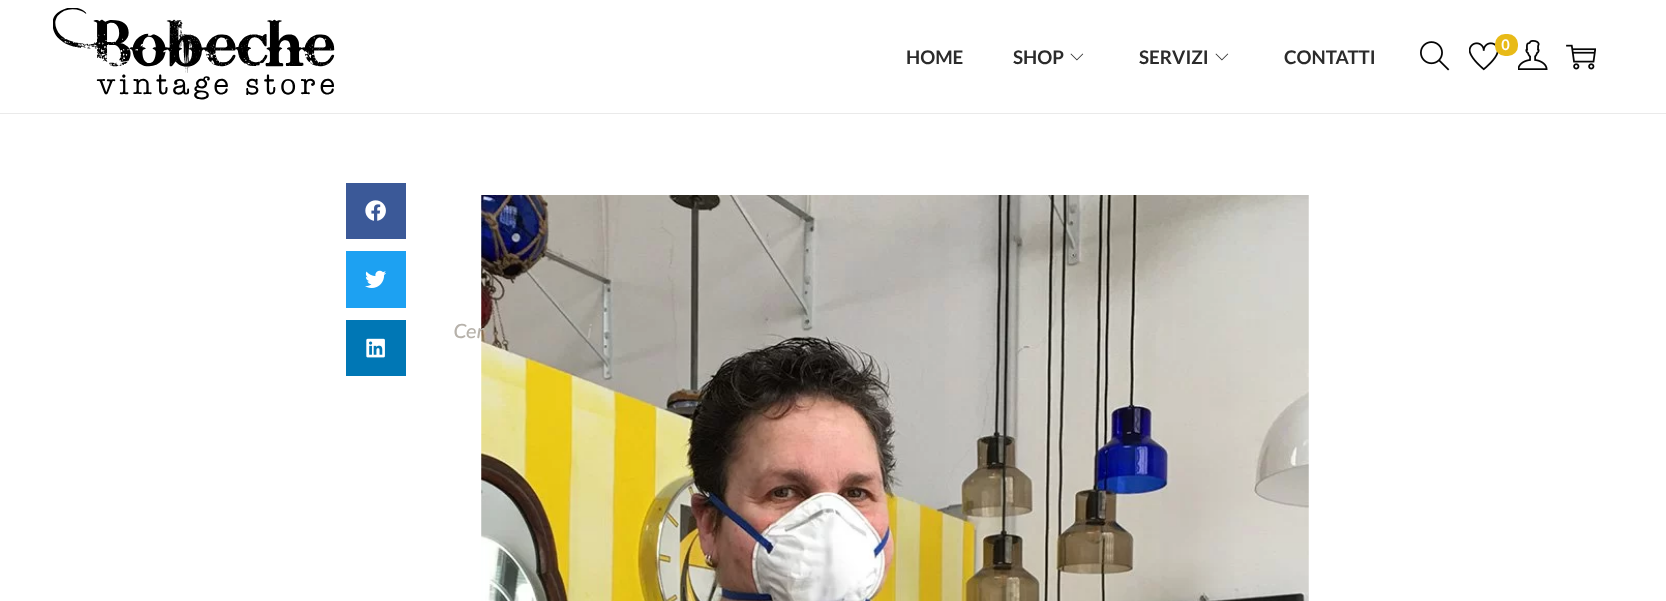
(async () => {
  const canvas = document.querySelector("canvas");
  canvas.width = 1666;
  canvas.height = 601;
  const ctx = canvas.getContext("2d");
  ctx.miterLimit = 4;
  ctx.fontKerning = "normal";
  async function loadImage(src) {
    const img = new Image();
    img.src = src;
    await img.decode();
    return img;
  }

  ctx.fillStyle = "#ffffff";
  ctx.fillRect(0, 0, 1666, 601);
  ctx.fillStyle = "#eaeaea";
  ctx.fillRect(0, 113, 1666, 1);
  ctx.drawImage(await loadImage("img/1.png"), 53, 8, 282, 92);
  ctx.drawImage(await loadImage("img/2.png"), 1420, 41, 30, 30);
  ctx.drawImage(await loadImage("img/3.png"), 1469, 42, 30, 29);
  ctx.fillStyle = "#e8ba17";
  ctx.beginPath();
  ctx.roundRect(1495, 34, 23, 22, 10);
  ctx.fill();
  ctx.drawImage(await loadImage("img/4.png"), 1518, 40, 30, 30);
  ctx.drawImage(await loadImage("img/5.png"), 1566, 44, 30, 26);
  ctx.drawImage(await loadImage("img/6.png"), 1070, 53, 14, 8);
  ctx.drawImage(await loadImage("img/6.png"), 1215, 53, 14, 8);
  ctx.fillStyle = "#3b5998";
  ctx.fillRect(346, 183, 60, 56);
  ctx.drawImage(await loadImage("img/7.png"), 365, 200, 21, 21);
  ctx.fillStyle = "#1da1f2";
  ctx.fillRect(346, 251, 60, 57);
  ctx.drawImage(await loadImage("img/8.png"), 365, 270, 21, 18);
  ctx.fillStyle = "#0077b5";
  ctx.fillRect(346, 320, 60, 56);
  ctx.drawImage(await loadImage("img/9.png"), 366, 338, 19, 20);
  ctx.drawImage(await loadImage("img/10.png"), 481, 195, 828, 406);
  ctx.font = "bold 15px Nunito";
  ctx.fillStyle = "#ffffff";
  ctx.fillText("0", 1501, 50);
  ctx.font = "bold 18.75px Lato";
  ctx.fillStyle = "#2b2b2b";
  for (const [text, x, y] of [
    ["HOME", 906, 64],
    ["SHOP", 1013, 64],
    ["SERVIZI", 1139, 64],
    ["CONTATTI", 1284, 64],
  ]) {
    ctx.fillText(text, x, y);
  }
  ctx.font = "italic 600 20px Nunito";
  ctx.fillStyle = "#b7b2ab";
  ctx.fillText("Cer", 453, 338);
  ctx.fillText("i", 587, 338);
})();
